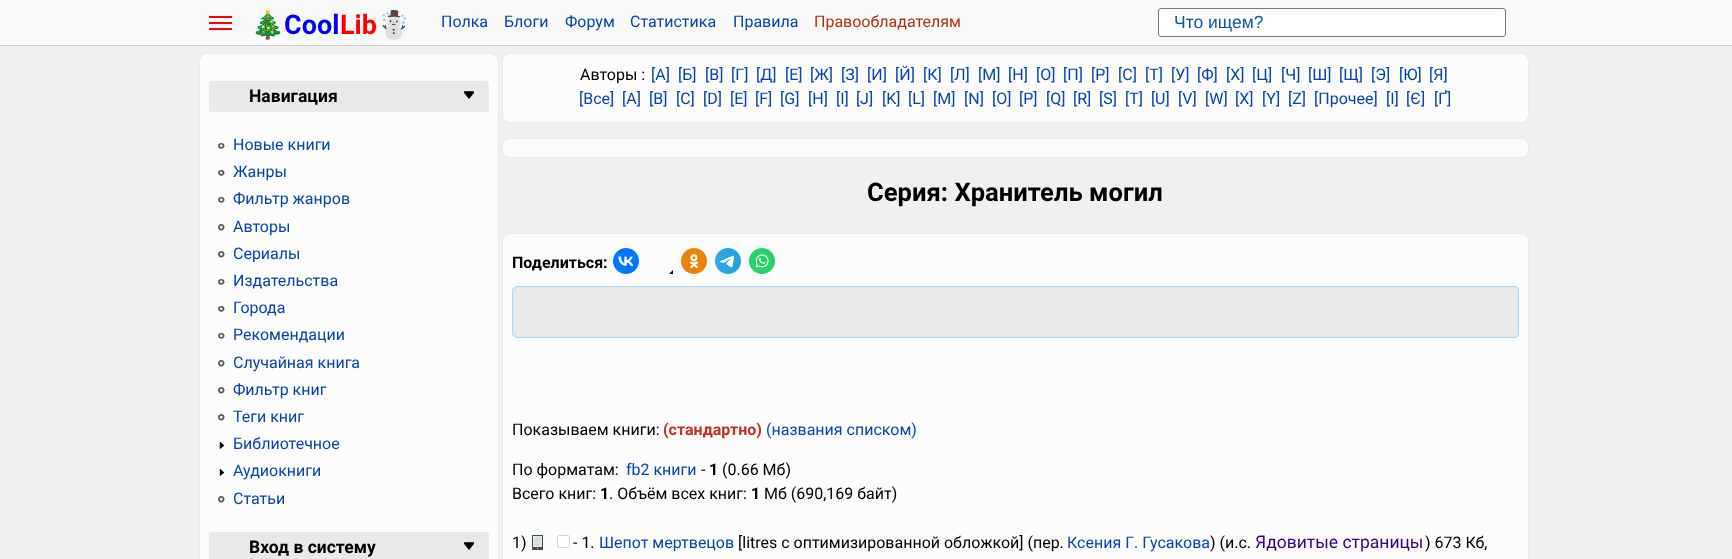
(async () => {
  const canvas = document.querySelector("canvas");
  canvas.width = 1732;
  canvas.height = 559;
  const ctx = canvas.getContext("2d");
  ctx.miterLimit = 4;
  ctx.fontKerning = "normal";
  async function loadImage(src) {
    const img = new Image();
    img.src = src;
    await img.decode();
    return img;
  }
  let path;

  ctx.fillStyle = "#f0f0f0";
  ctx.fillRect(0, 0, 1732, 559);
  for (const [x, y, w, h, color] of [
    [0, 0, 1732, 45, "#f9f9f9"],
    [0, 45, 1732, 1, "#cdcdcd"],
    [209, 22, 23, 2, "#ff0000"],
    [209, 16, 23, 2, "#ff0000"],
    [209, 28, 23, 2, "#ff0000"],
  ]) {
    ctx.fillStyle = color;
    ctx.fillRect(x, y, w, h);
  }
  ctx.fillStyle = "#ffffff";
  ctx.beginPath();
  ctx.roundRect(1158.5, 8.5, 347, 28, 2.5);
  ctx.fill();
  ctx.strokeStyle = "#777777";
  ctx.stroke();
  ctx.fillStyle = "#fcfcfc";
  ctx.beginPath();
  ctx.roundRect(199.5, 53.5, 299, 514, 7.5);
  ctx.fill();
  ctx.strokeStyle = "#eaeaea";
  ctx.stroke();
  ctx.fillStyle = "#e9e9e9";
  ctx.beginPath();
  ctx.roundRect(209, 81, 280, 31, 3);
  ctx.fill();
  ctx.drawImage(await loadImage("img/1.png"), 464, 91, 10, 8);
  ctx.drawImage(await loadImage("img/2.png"), 218, 143, 7, 6);
  ctx.drawImage(await loadImage("img/2.png"), 218, 170, 7, 6);
  ctx.drawImage(await loadImage("img/2.png"), 218, 197, 7, 6);
  ctx.drawImage(await loadImage("img/3.png"), 218, 224, 7, 7);
  ctx.drawImage(await loadImage("img/4.png"), 218, 251, 7, 7);
  ctx.drawImage(await loadImage("img/2.png"), 218, 279, 7, 6);
  ctx.drawImage(await loadImage("img/2.png"), 218, 306, 7, 6);
  ctx.drawImage(await loadImage("img/2.png"), 218, 333, 7, 6);
  ctx.drawImage(await loadImage("img/3.png"), 218, 360, 7, 7);
  ctx.drawImage(await loadImage("img/3.png"), 218, 387, 7, 7);
  ctx.drawImage(await loadImage("img/3.png"), 218, 414, 7, 7);
  ctx.drawImage(await loadImage("img/5.png"), 219, 442, 6, 7);
  ctx.drawImage(await loadImage("img/5.png"), 219, 469, 6, 7);
  ctx.drawImage(await loadImage("img/3.png"), 218, 496, 7, 7);
  ctx.beginPath();
  ctx.roundRect(209, 532, 280, 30, 3);
  ctx.fill();
  ctx.drawImage(await loadImage("img/1.png"), 464, 542, 10, 8);
  ctx.fillStyle = "#fcfcfc";
  ctx.beginPath();
  ctx.roundRect(502.5, 53.5, 1026, 69, 7.5);
  ctx.fill();
  ctx.stroke();
  ctx.beginPath();
  ctx.roundRect(502.5, 138.5, 1026, 19, 7.5);
  ctx.fill();
  ctx.stroke();
  ctx.beginPath();
  ctx.roundRect(502.5, 233.5, 1026, 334, 7.5);
  ctx.fill();
  ctx.stroke();
  ctx.drawImage(await loadImage("img/6.png"), 613, 248, 26, 26);
  ctx.drawImage(await loadImage("img/7.png"), 681, 248, 26, 26);
  ctx.drawImage(await loadImage("img/8.png"), 715, 248, 26, 26);
  ctx.drawImage(await loadImage("img/9.png"), 749, 248, 26, 26);
  ctx.save();
  ctx.beginPath();
  ctx.rect(647, 248, 26, 26);
  ctx.clip();
  ctx.fillStyle = "#000000";
  path = new Path2D("M722 251C682 251 650 283 650 323C650 363 682 395 722 395C762 395 794 363 794 323C794 283 762 251 722 251");
  ctx.fill(path);
  ctx.restore();
  ctx.fillStyle = "#e9e9e9";
  ctx.beginPath();
  ctx.roundRect(512.5, 286.5, 1006, 51, 4.5);
  ctx.fill();
  ctx.strokeStyle = "#a7d7f9";
  ctx.stroke();
  ctx.drawImage(await loadImage("img/10.png"), 532, 535, 11, 15);
  ctx.fillStyle = "#ffffff";
  ctx.beginPath();
  ctx.roundRect(557.5, 535.5, 12, 12, 1.5);
  ctx.fill();
  ctx.strokeStyle = "#d6d6d6";
  ctx.stroke();
  ctx.font = "bold 27px Noto Color Emoji";
  ctx.fillStyle = "#0000ff";
  ctx.fillText("🎄", 251, 34);
  ctx.font = "bold 27px Roboto";
  ctx.fillText("Cool", 284, 34);
  ctx.fillStyle = "#ff0000";
  ctx.fillText("Lib", 340, 34);
  ctx.font = "bold 27px Noto Color Emoji";
  ctx.fillText("☃️", 377, 34);
  ctx.font = "16px Roboto";
  ctx.fillStyle = "#0645ad";
  for (const [text, x, y] of [
    ["Полка", 441, 27],
    ["Блоги", 504, 27],
    ["Форум", 565, 27],
    ["Статистика", 630, 27],
    ["Правила", 733, 27],
  ]) {
    ctx.fillText(text, x, y);
  }
  ctx.fillStyle = "#b1320e";
  ctx.fillText("Правообладателям", 814, 27);
  ctx.font = "17.5px Liberation Sans";
  ctx.fillStyle = "#0a57a8";
  ctx.fillText("Что ищем?", 1174, 28);
  ctx.font = "bold 17.5px Roboto";
  ctx.fillStyle = "#000000";
  ctx.fillText("Навигация", 249, 102);
  ctx.font = "16px Roboto";
  ctx.fillStyle = "#0645ad";
  for (const [text, x, y] of [
    ["Новые книги", 233, 150],
    ["Жанры", 233, 177],
    ["Фильтр жанров", 233, 204],
    ["Авторы", 233, 232],
    ["Сериалы", 233, 259],
    ["Издательства", 233, 286],
    ["Города", 233, 313],
    ["Рекомендации", 233, 340],
    ["Случайная книга", 233, 368],
    ["Фильтр книг", 233, 395],
    ["Теги книг", 233, 422],
    ["Библиотечное", 233, 449],
    ["Аудиокниги", 233, 476],
    ["Статьи", 233, 504],
  ]) {
    ctx.fillText(text, x, y);
  }
  ctx.font = "bold 17.5px Roboto";
  ctx.fillStyle = "#000000";
  ctx.fillText("Вход в систему", 249, 553);
  ctx.font = "16px Roboto";
  ctx.fillText("Авторы :", 580, 80);
  ctx.fillStyle = "#0645ad";
  for (const [text, x, y] of [
    ["[А]", 651, 80],
    ["[Б]", 678, 80],
    ["[В]", 705, 80],
    ["[Г]", 731, 80],
    ["[Д]", 756, 80],
    ["[Е]", 785, 80],
    ["[Ж]", 810, 80],
    ["[З]", 841, 80],
    ["[И]", 867, 80],
    ["[Й]", 895, 80],
    ["[К]", 923, 80],
    ["[Л]", 950, 80],
    ["[М]", 978, 80],
    ["[Н]", 1008, 80],
    ["[О]", 1036, 80],
    ["[П]", 1063, 80],
    ["[Р]", 1091, 80],
    ["[С]", 1118, 80],
    ["[Т]", 1145, 80],
    ["[У]", 1171, 80],
    ["[Ф]", 1197, 80],
    ["[Х]", 1226, 80],
    ["[Ц]", 1252, 80],
    ["[Ч]", 1281, 80],
    ["[Ш]", 1308, 80],
    ["[Щ]", 1339, 80],
    ["[Э]", 1371, 80],
    ["[Ю]", 1399, 80],
    ["[Я]", 1429, 80],
    ["[Все]", 579, 104],
    ["[A]", 622, 104],
    ["[B]", 649, 104],
    ["[C]", 676, 104],
    ["[D]", 703, 104],
    ["[E]", 730, 104],
    ["[F]", 755, 104],
    ["[G]", 780, 104],
    ["[H]", 808, 104],
    ["[I]", 836, 104],
    ["[J]", 856, 104],
    ["[K]", 882, 104],
    ["[L]", 908, 104],
    ["[M]", 933, 104],
    ["[N]", 964, 104],
    ["[O]", 992, 104],
    ["[P]", 1019, 104],
    ["[Q]", 1046, 104],
    ["[R]", 1073, 104],
    ["[S]", 1099, 104],
    ["[T]", 1125, 104],
    ["[U]", 1151, 104],
    ["[V]", 1178, 104],
    ["[W]", 1205, 104],
    ["[X]", 1235, 104],
    ["[Y]", 1262, 104],
    ["[Z]", 1288, 104],
    ["[Прочее]", 1314, 104],
    ["[І]", 1386, 104],
    ["[Є]", 1406, 104],
    ["[Ґ]", 1434, 104],
  ]) {
    ctx.fillText(text, x, y);
  }
  ctx.font = "bold 25.6px Roboto";
  ctx.fillStyle = "#000000";
  ctx.fillText("Серия: Хранитель могил", 867, 201);
  ctx.font = "bold 16px Roboto";
  ctx.fillText("Поделиться:", 512, 268);
  ctx.font = "16px Roboto";
  ctx.fillText("Показываем книги:", 512, 435);
  ctx.font = "bold 16px Roboto";
  ctx.fillStyle = "#bc3524";
  ctx.fillText("(стандартно)", 663, 435);
  ctx.font = "16px Roboto";
  ctx.fillStyle = "#0645ad";
  ctx.fillText("(названия списком)", 766, 435);
  ctx.fillStyle = "#000000";
  ctx.fillText("По форматам:", 512, 475);
  ctx.fillStyle = "#0645ad";
  ctx.fillText("fb2 книги", 626, 475);
  ctx.fillStyle = "#000000";
  ctx.fillText("-", 701, 475);
  ctx.font = "bold 16px Roboto";
  ctx.fillText("1", 709, 475);
  ctx.font = "16px Roboto";
  ctx.fillText("(0.66 Мб)", 722, 475);
  ctx.fillText("Всего книг:", 512, 499);
  ctx.font = "bold 16px Roboto";
  ctx.fillText("1", 600, 499);
  ctx.font = "16px Roboto";
  ctx.fillText(". Объём всех книг:", 609, 499);
  ctx.font = "bold 16px Roboto";
  ctx.fillText("1", 751, 499);
  ctx.font = "16px Roboto";
  for (const [text, x, y] of [
    ["Мб (690,169 байт)", 764, 499],
    ["1)", 512, 548],
    ["- 1.", 573, 548],
  ]) {
    ctx.fillText(text, x, y);
  }
  ctx.fillStyle = "#0645ad";
  ctx.fillText("Шепот мертвецов", 599, 548);
  ctx.fillStyle = "#000000";
  ctx.fillText("[litres с оптимизированной обложкой] (пер.", 738, 548);
  ctx.fillStyle = "#0645ad";
  ctx.fillText("Ксения Г. Гусакова", 1067, 548);
  ctx.fillStyle = "#000000";
  ctx.fillText(") (и.с.", 1210, 548);
  ctx.font = "17.5px Roboto";
  ctx.fillStyle = "#3b008b";
  ctx.fillText("Ядовитые страницы", 1255, 548);
  ctx.font = "16px Roboto";
  ctx.fillStyle = "#000000";
  ctx.fillText(") 673 Кб,", 1425, 548);
})();
